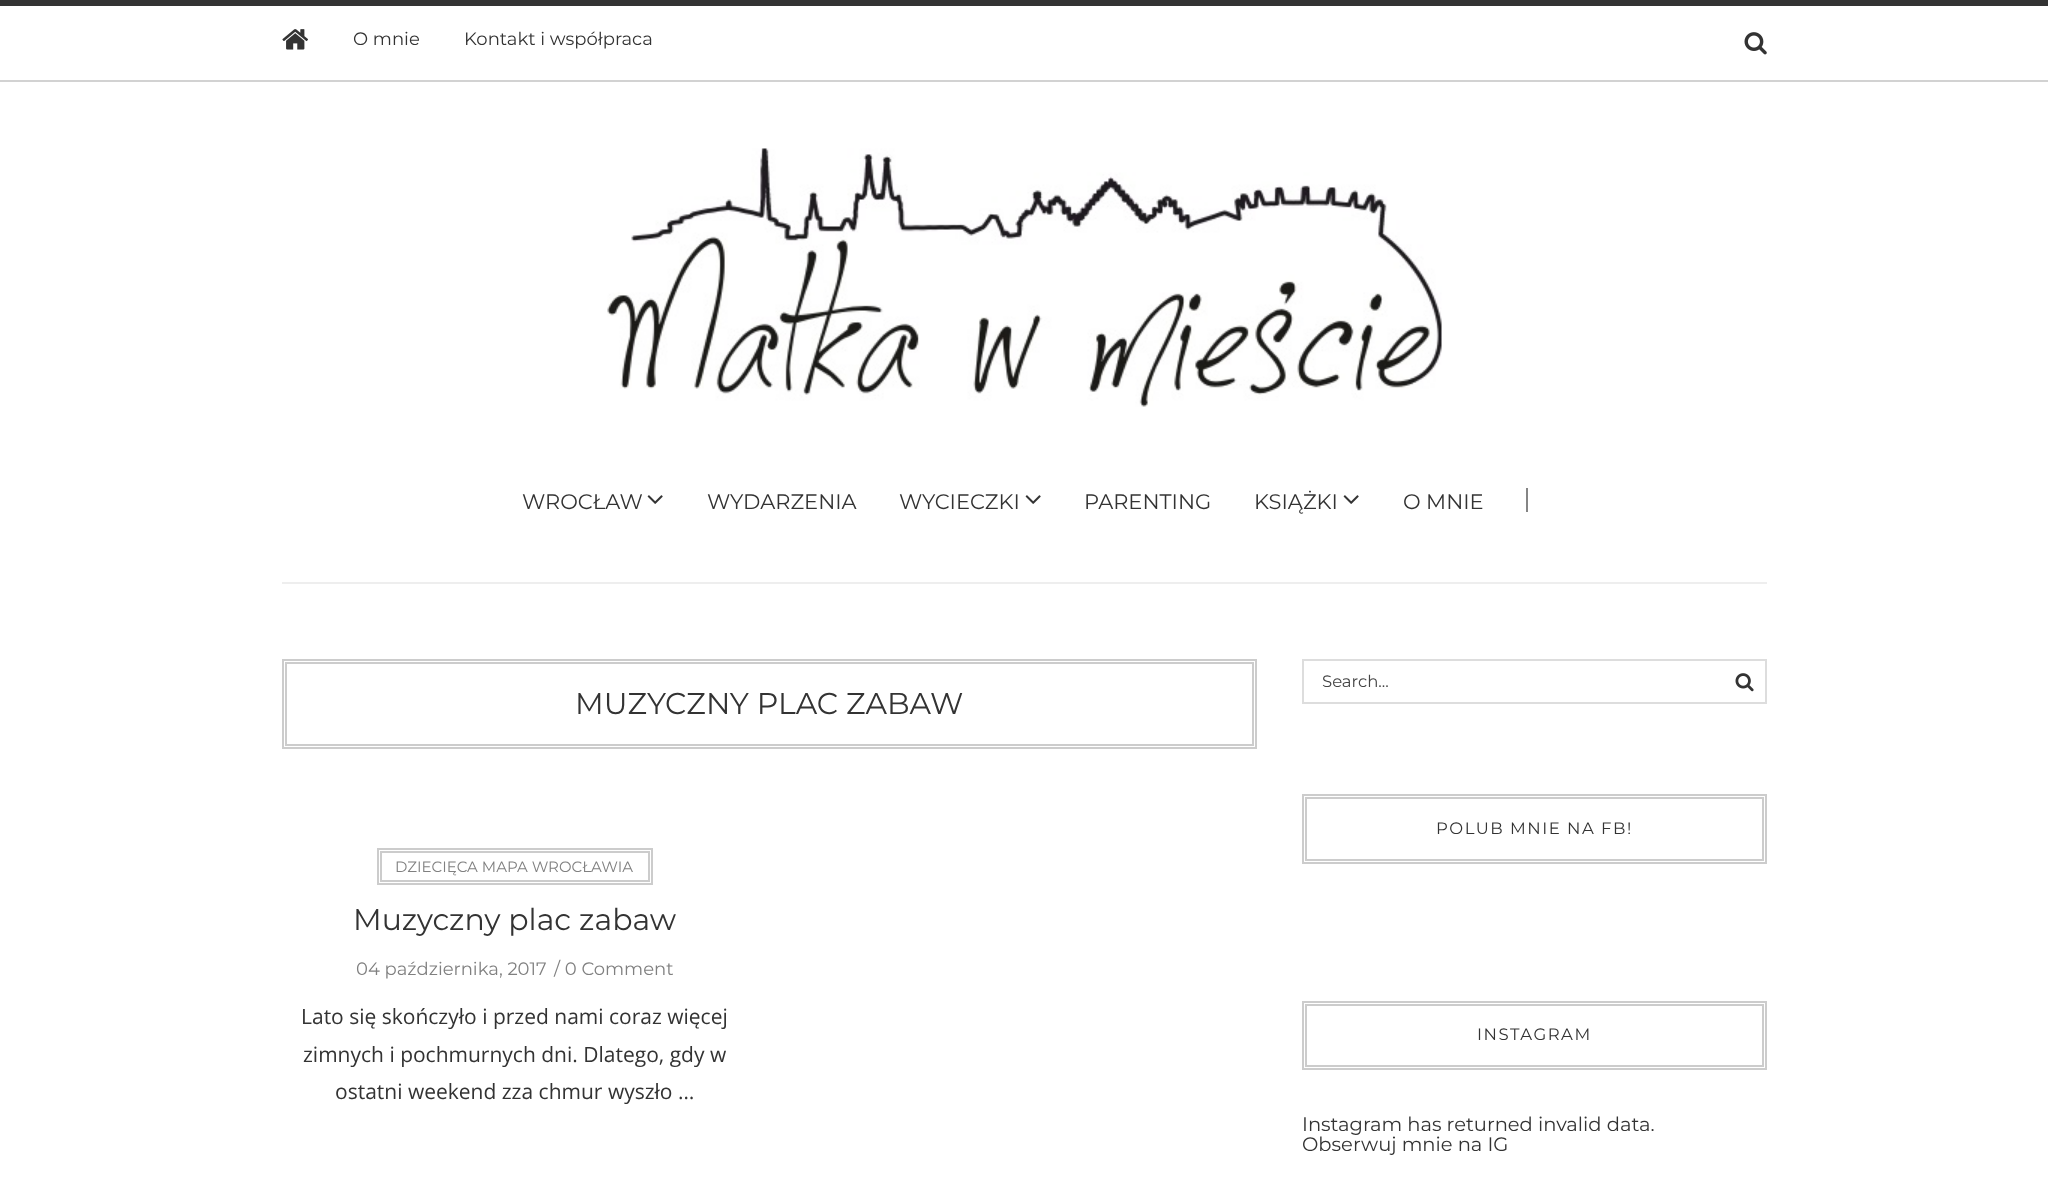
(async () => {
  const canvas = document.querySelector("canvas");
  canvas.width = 2048;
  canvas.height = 1193;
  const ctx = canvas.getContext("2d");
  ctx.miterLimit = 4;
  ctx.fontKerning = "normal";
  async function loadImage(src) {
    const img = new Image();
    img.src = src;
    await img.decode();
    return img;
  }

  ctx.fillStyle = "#ffffff";
  ctx.fillRect(0, 0, 2048, 1193);
  ctx.fillStyle = "#333333";
  ctx.fillRect(0, 0, 2048, 6);
  ctx.fillStyle = "#d2d2d2";
  ctx.fillRect(0, 80, 2048, 2);
  ctx.drawImage(await loadImage("img/1.png"), 282, 29, 26, 21);
  ctx.drawImage(await loadImage("img/2.png"), 1744, 32, 23, 23);
  ctx.fillStyle = "#eeeeee";
  ctx.fillRect(282, 582, 1485, 2);
  ctx.drawImage(await loadImage("img/3.png"), 607, 148, 835, 259);
  ctx.drawImage(await loadImage("img/4.png"), 647, 495, 16, 9);
  ctx.drawImage(await loadImage("img/4.png"), 1025, 495, 16, 9);
  ctx.drawImage(await loadImage("img/4.png"), 1343, 495, 16, 9);
  ctx.fillStyle = "#858585";
  ctx.fillRect(1526, 488, 2, 24);
  ctx.strokeStyle = "#cccccc";
  ctx.lineWidth = 2;
  ctx.strokeRect(283, 660, 973, 88);
  ctx.strokeRect(286, 663, 967, 82);
  ctx.strokeRect(378, 849, 274, 35);
  ctx.strokeRect(381, 852, 268, 29);
  ctx.strokeStyle = "#dddddd";
  ctx.strokeRect(1303, 660, 463, 43);
  ctx.drawImage(await loadImage("img/5.png"), 1735, 673, 19, 19);
  ctx.strokeStyle = "#cccccc";
  ctx.strokeRect(1303, 795, 463, 68);
  ctx.strokeRect(1306, 798, 457, 62);
  ctx.strokeRect(1303, 1002, 463, 67);
  ctx.strokeRect(1306, 1005, 457, 61);
  ctx.font = "18px Montserrat";
  ctx.fillStyle = "#333333";
  ctx.fillText("O mnie", 353, 45);
  ctx.fillText("Kontakt i współpraca", 464, 45);
  ctx.font = "21px Montserrat";
  for (const [text, x, y] of [
    ["WROCŁAW", 522, 509],
    ["WYDARZENIA", 707, 509],
    ["WYCIECZKI", 899, 509],
    ["PARENTING", 1084, 509],
    ["KSIĄŻKI", 1254, 509],
    ["O MNIE", 1403, 509],
  ]) {
    ctx.fillText(text, x, y);
  }
  ctx.font = "30px Montserrat";
  ctx.fillText("MUZYCZNY PLAC ZABAW", 575, 714);
  ctx.font = "15px Montserrat";
  ctx.fillStyle = "#808080";
  ctx.fillText("DZIECIĘCA MAPA WROCŁAWIA", 395, 872);
  ctx.font = "30px Montserrat";
  ctx.fillStyle = "#333333";
  ctx.fillText("Muzyczny plac zabaw", 353, 930);
  ctx.font = "18px Montserrat";
  ctx.fillStyle = "#808080";
  ctx.fillText("04 października, 2017", 356, 975);
  ctx.fillText("/ 0 Comment", 554, 975);
  ctx.font = "21px Open Sans";
  ctx.fillStyle = "#333333";
  for (const [text, x, y] of [
    ["Lato się skończyło i przed nami coraz więcej", 301, 1024],
    ["zimnych i pochmurnych dni. Dlatego, gdy w", 303, 1062],
    ["ostatni weekend zza chmur wyszło …", 335, 1099],
  ]) {
    ctx.fillText(text, x, y);
  }
  ctx.font = "16.5px Montserrat";
  ctx.fillStyle = "#444444";
  ctx.fillText("Search...", 1322, 687);
  ctx.letterSpacing = "1.5px";
  ctx.fillStyle = "#333333";
  ctx.fillText("POLUB MNIE NA FB!", 1436, 834);
  ctx.fillText("INSTAGRAM", 1477, 1040);
  ctx.letterSpacing = "0px";
  ctx.font = "19.5px Montserrat";
  ctx.fillText("Instagram has returned invalid data.", 1302, 1131);
  ctx.fillText("Obserwuj mnie na IG", 1302, 1151);
})();
